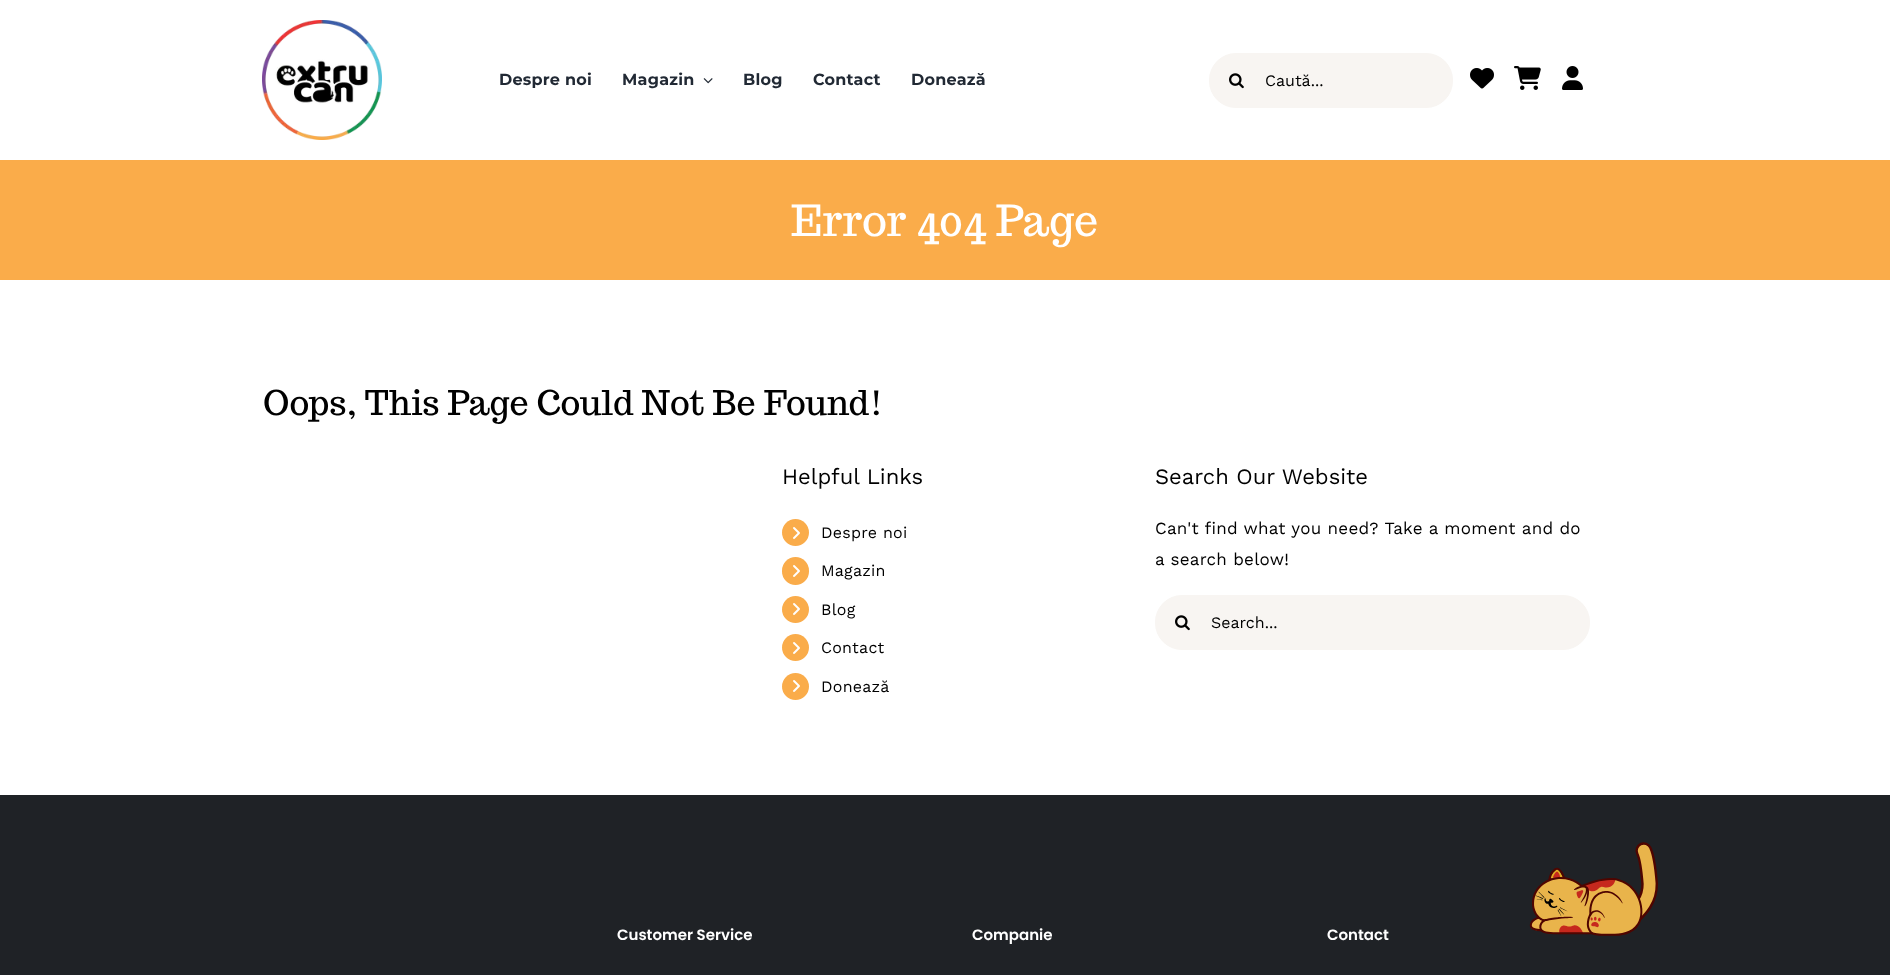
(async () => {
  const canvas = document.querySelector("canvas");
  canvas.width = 1890;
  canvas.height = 975;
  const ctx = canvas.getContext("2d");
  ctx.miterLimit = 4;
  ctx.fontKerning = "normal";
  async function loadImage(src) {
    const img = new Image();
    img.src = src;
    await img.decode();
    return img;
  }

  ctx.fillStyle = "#ffffff";
  ctx.fillRect(0, 0, 1890, 975);
  ctx.drawImage(await loadImage("img/1.png"), 262, 20, 120, 120);
  ctx.drawImage(await loadImage("img/2.png"), 703, 78, 10, 6);
  ctx.fillStyle = "#f8f5f2";
  ctx.beginPath();
  ctx.roundRect(1209.5, 53.5, 243, 54, 26.5);
  ctx.fill();
  ctx.strokeStyle = "#f8f5f2";
  ctx.stroke();
  ctx.drawImage(await loadImage("img/3.png"), 1229, 73, 15, 16);
  ctx.drawImage(await loadImage("img/4.png"), 1470, 68, 24, 21);
  ctx.drawImage(await loadImage("img/5.png"), 1514, 66, 27, 24);
  ctx.drawImage(await loadImage("img/6.png"), 1562, 66, 21, 24);
  ctx.fillStyle = "#faac4a";
  ctx.fillRect(0, 160, 1890, 120);
  ctx.beginPath();
  ctx.arc(795.5, 532.5, 13.5, 0, Math.PI * 2);
  ctx.fill();
  ctx.drawImage(await loadImage("img/7.png"), 793, 527, 7, 12);
  ctx.beginPath();
  ctx.roundRect(782, 557, 27, 28, 13.5);
  ctx.fill();
  ctx.drawImage(await loadImage("img/7.png"), 793, 565, 7, 12);
  ctx.beginPath();
  ctx.arc(795.5, 609.5, 13.5, 0, Math.PI * 2);
  ctx.fill();
  ctx.drawImage(await loadImage("img/7.png"), 793, 603, 7, 12);
  ctx.beginPath();
  ctx.arc(795.5, 647.5, 13.5, 0, Math.PI * 2);
  ctx.fill();
  ctx.drawImage(await loadImage("img/7.png"), 793, 642, 7, 12);
  ctx.beginPath();
  ctx.arc(795.5, 686.5, 13.5, 0, Math.PI * 2);
  ctx.fill();
  ctx.drawImage(await loadImage("img/7.png"), 793, 680, 7, 12);
  ctx.fillStyle = "#f8f5f2";
  ctx.beginPath();
  ctx.roundRect(1155.5, 595.5, 434, 54, 26.5);
  ctx.fill();
  ctx.stroke();
  ctx.drawImage(await loadImage("img/3.png"), 1175, 615, 15, 16);
  ctx.fillStyle = "#1f2226";
  ctx.fillRect(0, 795, 1890, 180);
  ctx.drawImage(await loadImage("img/8.png"), 1529, 842, 129, 94);
  ctx.letterSpacing = "0.25px";
  ctx.font = "100 16px Montserrat";
  ctx.fillStyle = "#212934";
  for (const [text, x, y] of [
    ["Despre noi", 499, 85],
    ["Magazin", 622, 85],
    ["Blog", 743, 85],
    ["Contact", 813, 85],
    ["Donează", 911, 85],
  ]) {
    ctx.fillText(text, x, y);
  }
  ctx.letterSpacing = "0px";
  ctx.font = "16px Work Sans";
  ctx.fillStyle = "#000000";
  ctx.fillText("Caută...", 1265, 86);
  ctx.font = "43px Trocchi";
  ctx.fillStyle = "#ffffff";
  ctx.fillText("Error 404 Page", 791, 236);
  ctx.font = "34px Trocchi";
  ctx.fillStyle = "#000000";
  ctx.fillText("Oops, This Page Could Not Be Found!", 263, 415);
  ctx.font = "22px Work Sans";
  ctx.fillText("Helpful Links", 782, 484);
  ctx.letterSpacing = "0.25px";
  ctx.font = "16px Work Sans";
  for (const [text, x, y] of [
    ["Despre noi", 821, 538],
    ["Magazin", 821, 576],
    ["Blog", 821, 615],
    ["Contact", 821, 653],
    ["Donează", 821, 692],
  ]) {
    ctx.fillText(text, x, y);
  }
  ctx.letterSpacing = "0px";
  ctx.font = "22px Work Sans";
  ctx.fillText("Search Our Website", 1155, 484);
  ctx.letterSpacing = "0.25px";
  ctx.font = "17px Work Sans";
  ctx.fillText("Can't find what you need? Take a moment and do", 1155, 534);
  ctx.fillText("a search below!", 1155, 565);
  ctx.letterSpacing = "0px";
  ctx.font = "16px Work Sans";
  ctx.fillText("Search...", 1211, 628);
  ctx.font = "600 15px Poppins";
  ctx.fillStyle = "#ffffff";
  for (const [text, x, y] of [
    ["Customer Service", 617, 940],
    ["Companie", 972, 940],
    ["Contact", 1327, 940],
  ]) {
    ctx.fillText(text, x, y);
  }
})();
